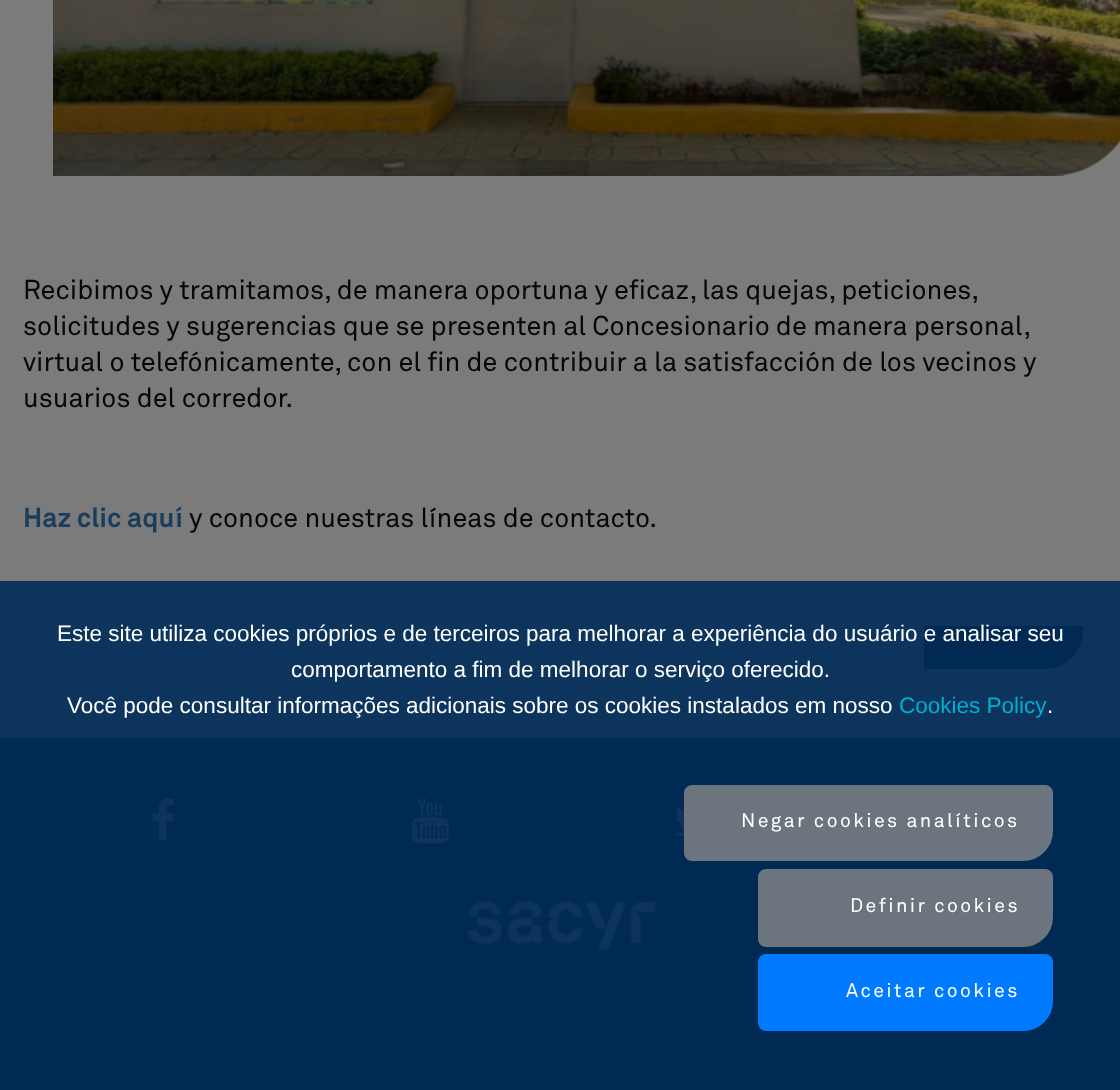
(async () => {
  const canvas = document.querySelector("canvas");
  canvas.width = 1120;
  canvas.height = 1090;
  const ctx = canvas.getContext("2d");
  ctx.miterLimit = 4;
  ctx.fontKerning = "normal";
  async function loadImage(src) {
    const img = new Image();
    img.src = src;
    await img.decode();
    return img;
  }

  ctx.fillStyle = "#7b7b7b";
  ctx.fillRect(0, 0, 1120, 1090);
  ctx.fillStyle = "#0c345c";
  ctx.fillRect(0, 581, 1120, 157);
  ctx.drawImage(await loadImage("img/1.png"), 53, 0, 1067, 176);
  ctx.fillStyle = "#002a54";
  ctx.beginPath();
  ctx.roundRect(924, 626, 159, 43, [0, 0, 38, 0]);
  ctx.fill();
  ctx.fillRect(0, 738, 1120, 352);
  ctx.fillStyle = "#6c757d";
  ctx.beginPath();
  ctx.roundRect(685, 786, 367, 74, [7, 7, 29, 7]);
  ctx.fill();
  ctx.strokeStyle = "#6c757d";
  ctx.lineWidth = 2;
  ctx.stroke();
  ctx.beginPath();
  ctx.roundRect(759, 870, 293, 76, [7, 7, 29, 7]);
  ctx.fill();
  ctx.stroke();
  ctx.fillStyle = "#007bff";
  ctx.beginPath();
  ctx.roundRect(759, 955, 293, 75, [7, 7, 29, 7]);
  ctx.fill();
  ctx.strokeStyle = "#007bff";
  ctx.stroke();
  ctx.drawImage(await loadImage("img/2.png"), 152, 798, 23, 43);
  ctx.drawImage(await loadImage("img/3.png"), 411, 798, 38, 46);
  ctx.drawImage(await loadImage("img/4.png"), 674, 806, 10, 31);
  ctx.drawImage(await loadImage("img/5.png"), 467, 901, 189, 49);
  ctx.wordSpacing = "-0.1px";
  ctx.font = "27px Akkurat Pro";
  ctx.fillStyle = "#070707";
  ctx.fillText("Recibimos y tramitamos, de manera oportuna y eficaz, las quejas, peticiones,", 23, 299);
  ctx.fillText("solicitudes y sugerencias que se presenten al Concesionario de manera personal,", 23, 335);
  ctx.wordSpacing = "0px";
  ctx.fillText("virtual o telefónicamente, con el fin de contribuir a la satisfacción de los vecinos y", 23, 371);
  ctx.fillText("usuarios del corredor.", 23, 407);
  ctx.font = "bold 27px Akkurat Pro";
  ctx.fillStyle = "#1a3d5c";
  ctx.fillText("Haz clic aquí", 23, 527);
  ctx.font = "27px Akkurat Pro";
  ctx.fillStyle = "#070707";
  ctx.fillText("y conoce nuestras líneas de contacto.", 189, 527);
  ctx.font = "22.5px Liberation Sans";
  ctx.fillStyle = "#ffffff";
  for (const [text, x, y] of [
    ["Este site utiliza cookies próprios e de terceiros para melhorar a experiência do usuário e analisar seu", 57, 641],
    ["comportamento a fim de melhorar o serviço oferecido.", 291, 677],
    ["Você pode consultar informações adicionais sobre os cookies instalados em nosso", 67, 713],
  ]) {
    ctx.fillText(text, x, y);
  }
  ctx.fillStyle = "#00afd2";
  ctx.fillText("Cookies Policy", 899, 713);
  ctx.fillStyle = "#ffffff";
  ctx.fillText(".", 1047, 713);
  ctx.letterSpacing = "2.4px";
  ctx.font = "19.5px Akkurat Pro";
  for (const [text, x, y] of [
    ["Negar cookies analíticos", 741, 827],
    ["Definir cookies", 850, 912],
    ["Aceitar cookies", 846, 997],
  ]) {
    ctx.fillText(text, x, y);
  }
})();
